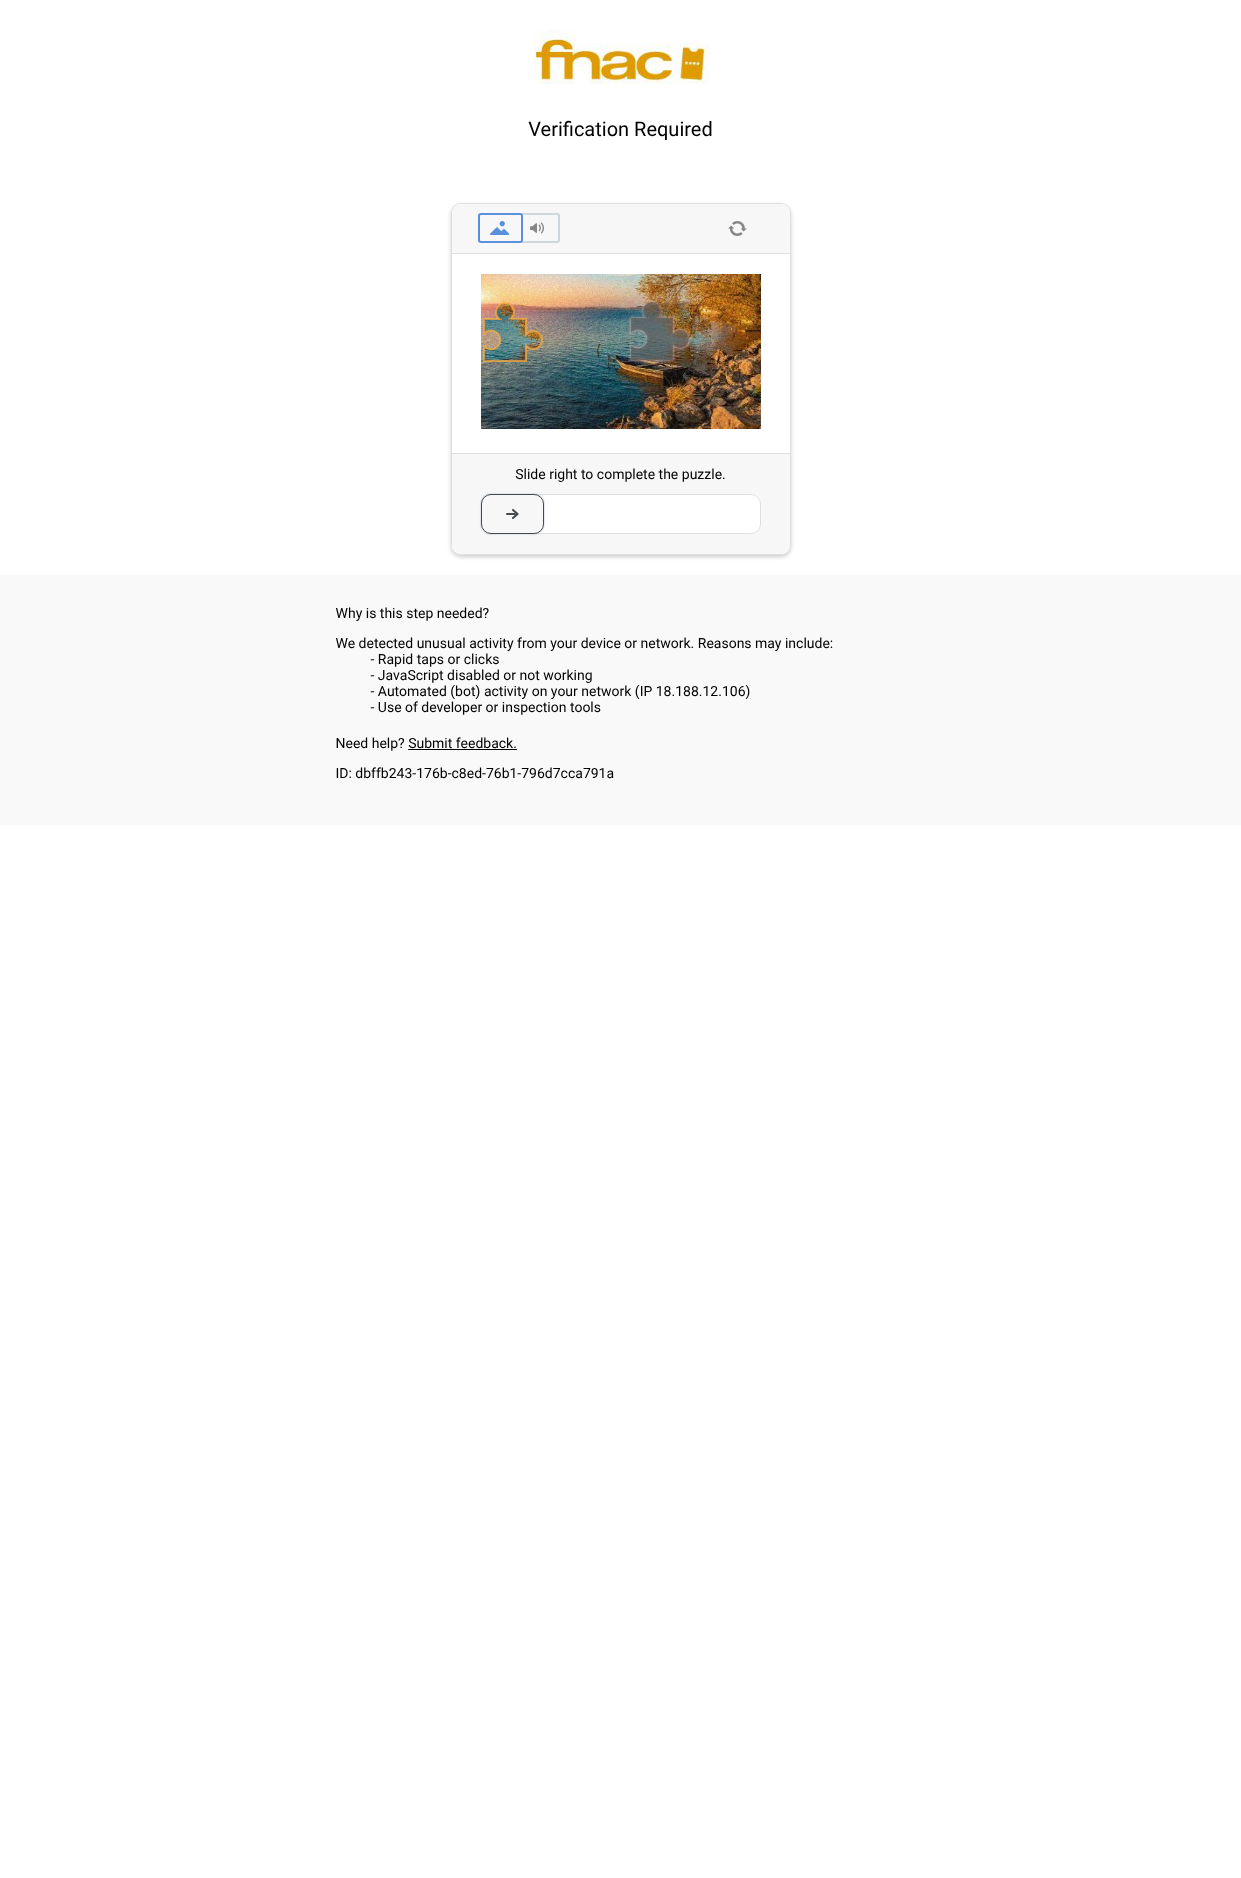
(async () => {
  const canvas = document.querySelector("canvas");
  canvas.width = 1241;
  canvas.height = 1878;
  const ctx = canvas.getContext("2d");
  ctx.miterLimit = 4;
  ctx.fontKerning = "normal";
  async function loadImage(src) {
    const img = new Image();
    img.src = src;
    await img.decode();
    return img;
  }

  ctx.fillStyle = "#ffffff";
  ctx.fillRect(0, 0, 1241, 1878);
  ctx.drawImage(await loadImage("img/1.png"), 0, 30, 1241, 795);
})();
